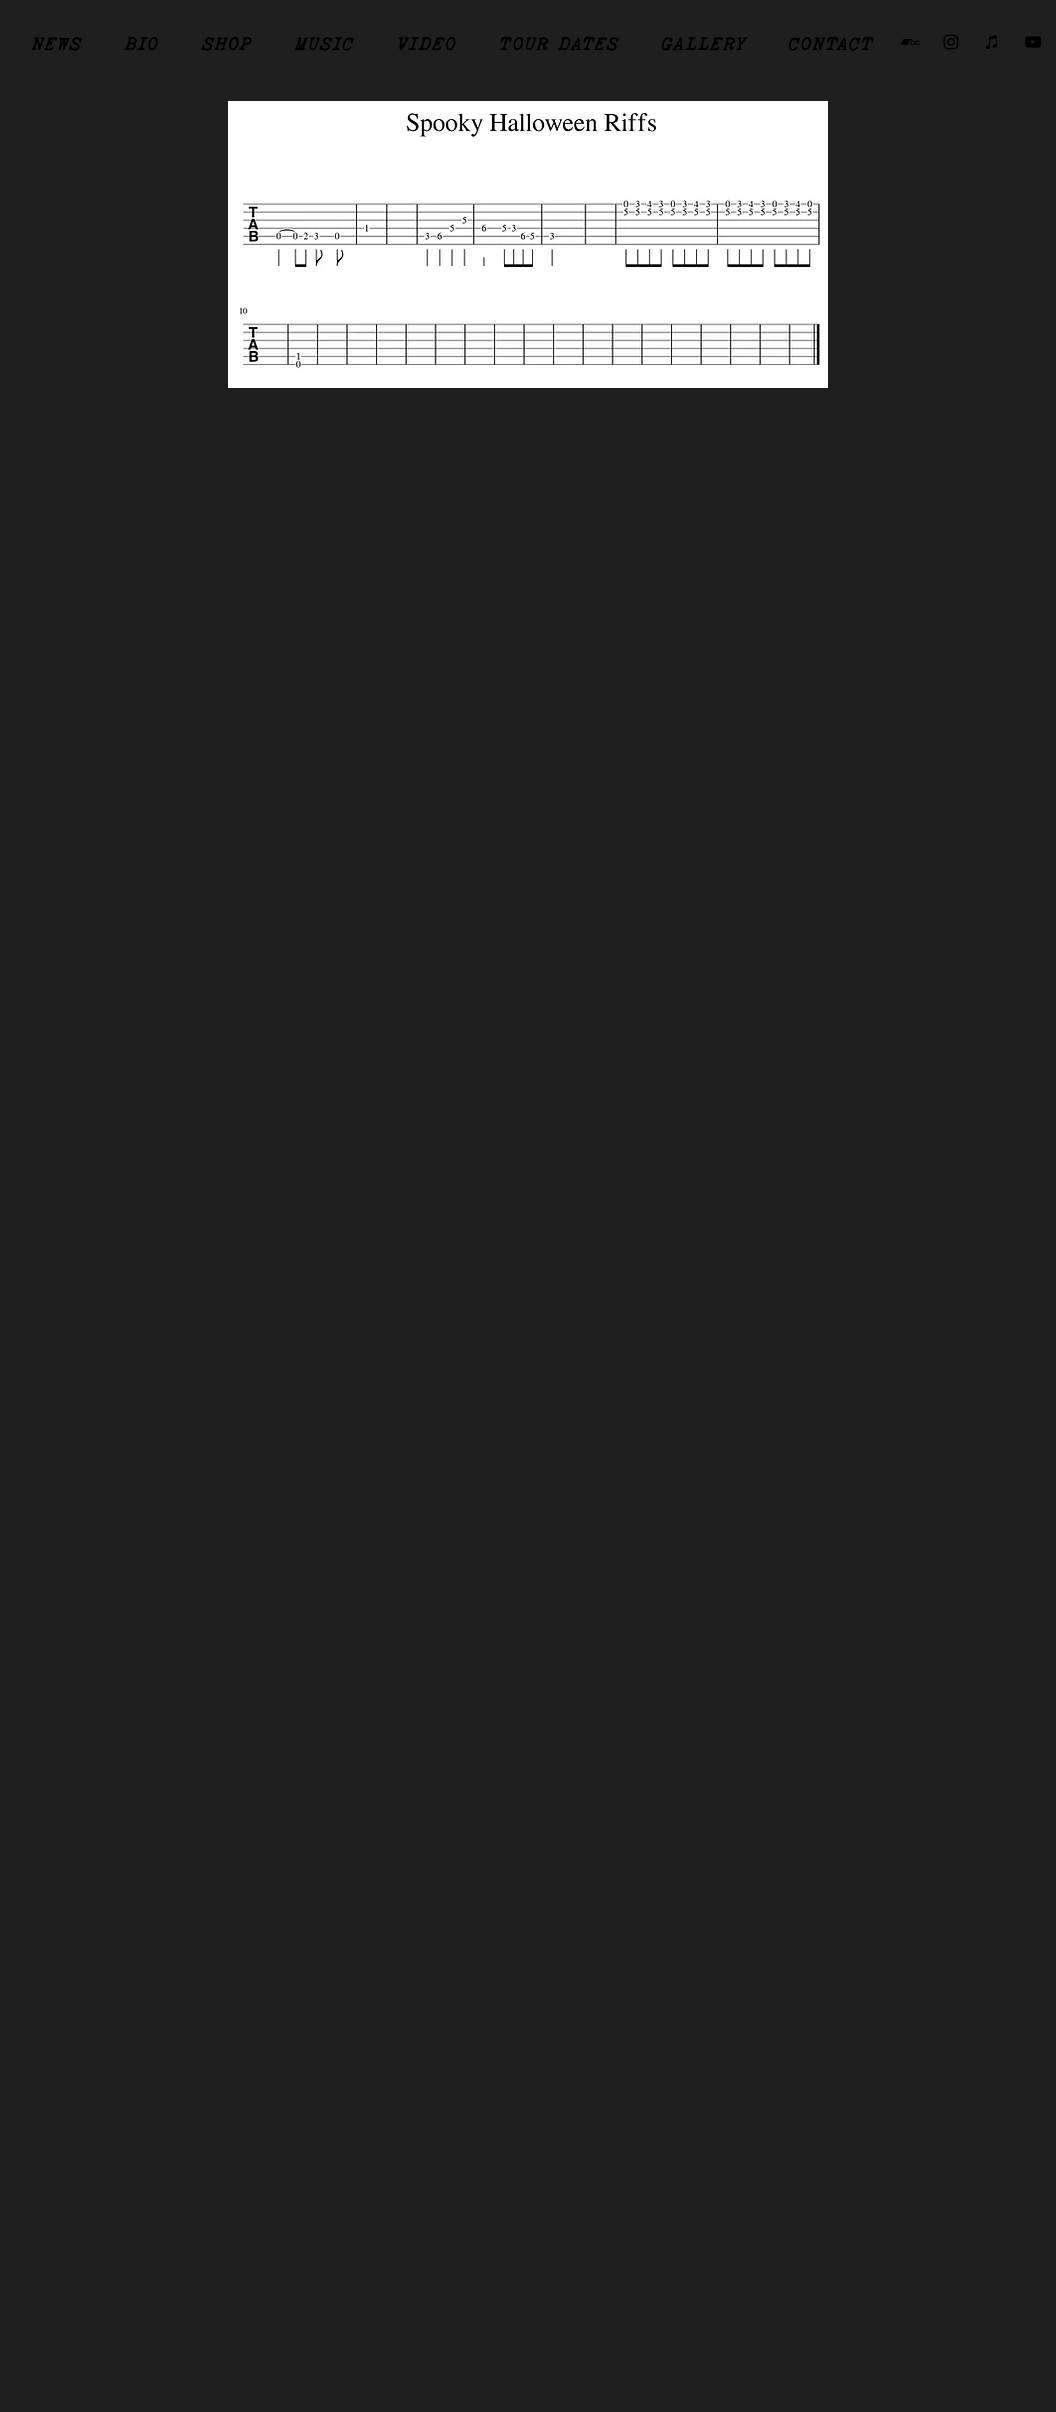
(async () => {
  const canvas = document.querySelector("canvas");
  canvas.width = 1056;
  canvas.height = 2412;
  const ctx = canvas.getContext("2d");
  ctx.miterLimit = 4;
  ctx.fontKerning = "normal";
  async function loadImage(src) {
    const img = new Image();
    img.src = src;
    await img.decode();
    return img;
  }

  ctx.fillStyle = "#1f1f1f";
  ctx.fillRect(0, 0, 1056, 2412);
  ctx.drawImage(await loadImage("img/1.png"), 900, 39, 20, 7);
  ctx.drawImage(await loadImage("img/2.png"), 943, 34, 16, 16);
  ctx.drawImage(await loadImage("img/3.png"), 985, 35, 12, 14);
  ctx.drawImage(await loadImage("img/4.png"), 1025, 36, 17, 12);
  ctx.drawImage(await loadImage("img/5.png"), 228, 101, 600, 287);
  ctx.font = "20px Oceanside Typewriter";
  ctx.fillStyle = "#000000";
  for (const [text, x, y] of [
    ["NEWS", 32, 50],
    ["BIO", 125, 50],
    ["SHOP", 202, 50],
    ["MUSIC", 295, 50],
    ["VIDEO", 397, 50],
    ["TOUR DATES", 499, 50],
    ["GALLERY", 661, 50],
    ["CONTACT", 788, 50],
  ]) {
    ctx.fillText(text, x, y);
  }
})();
